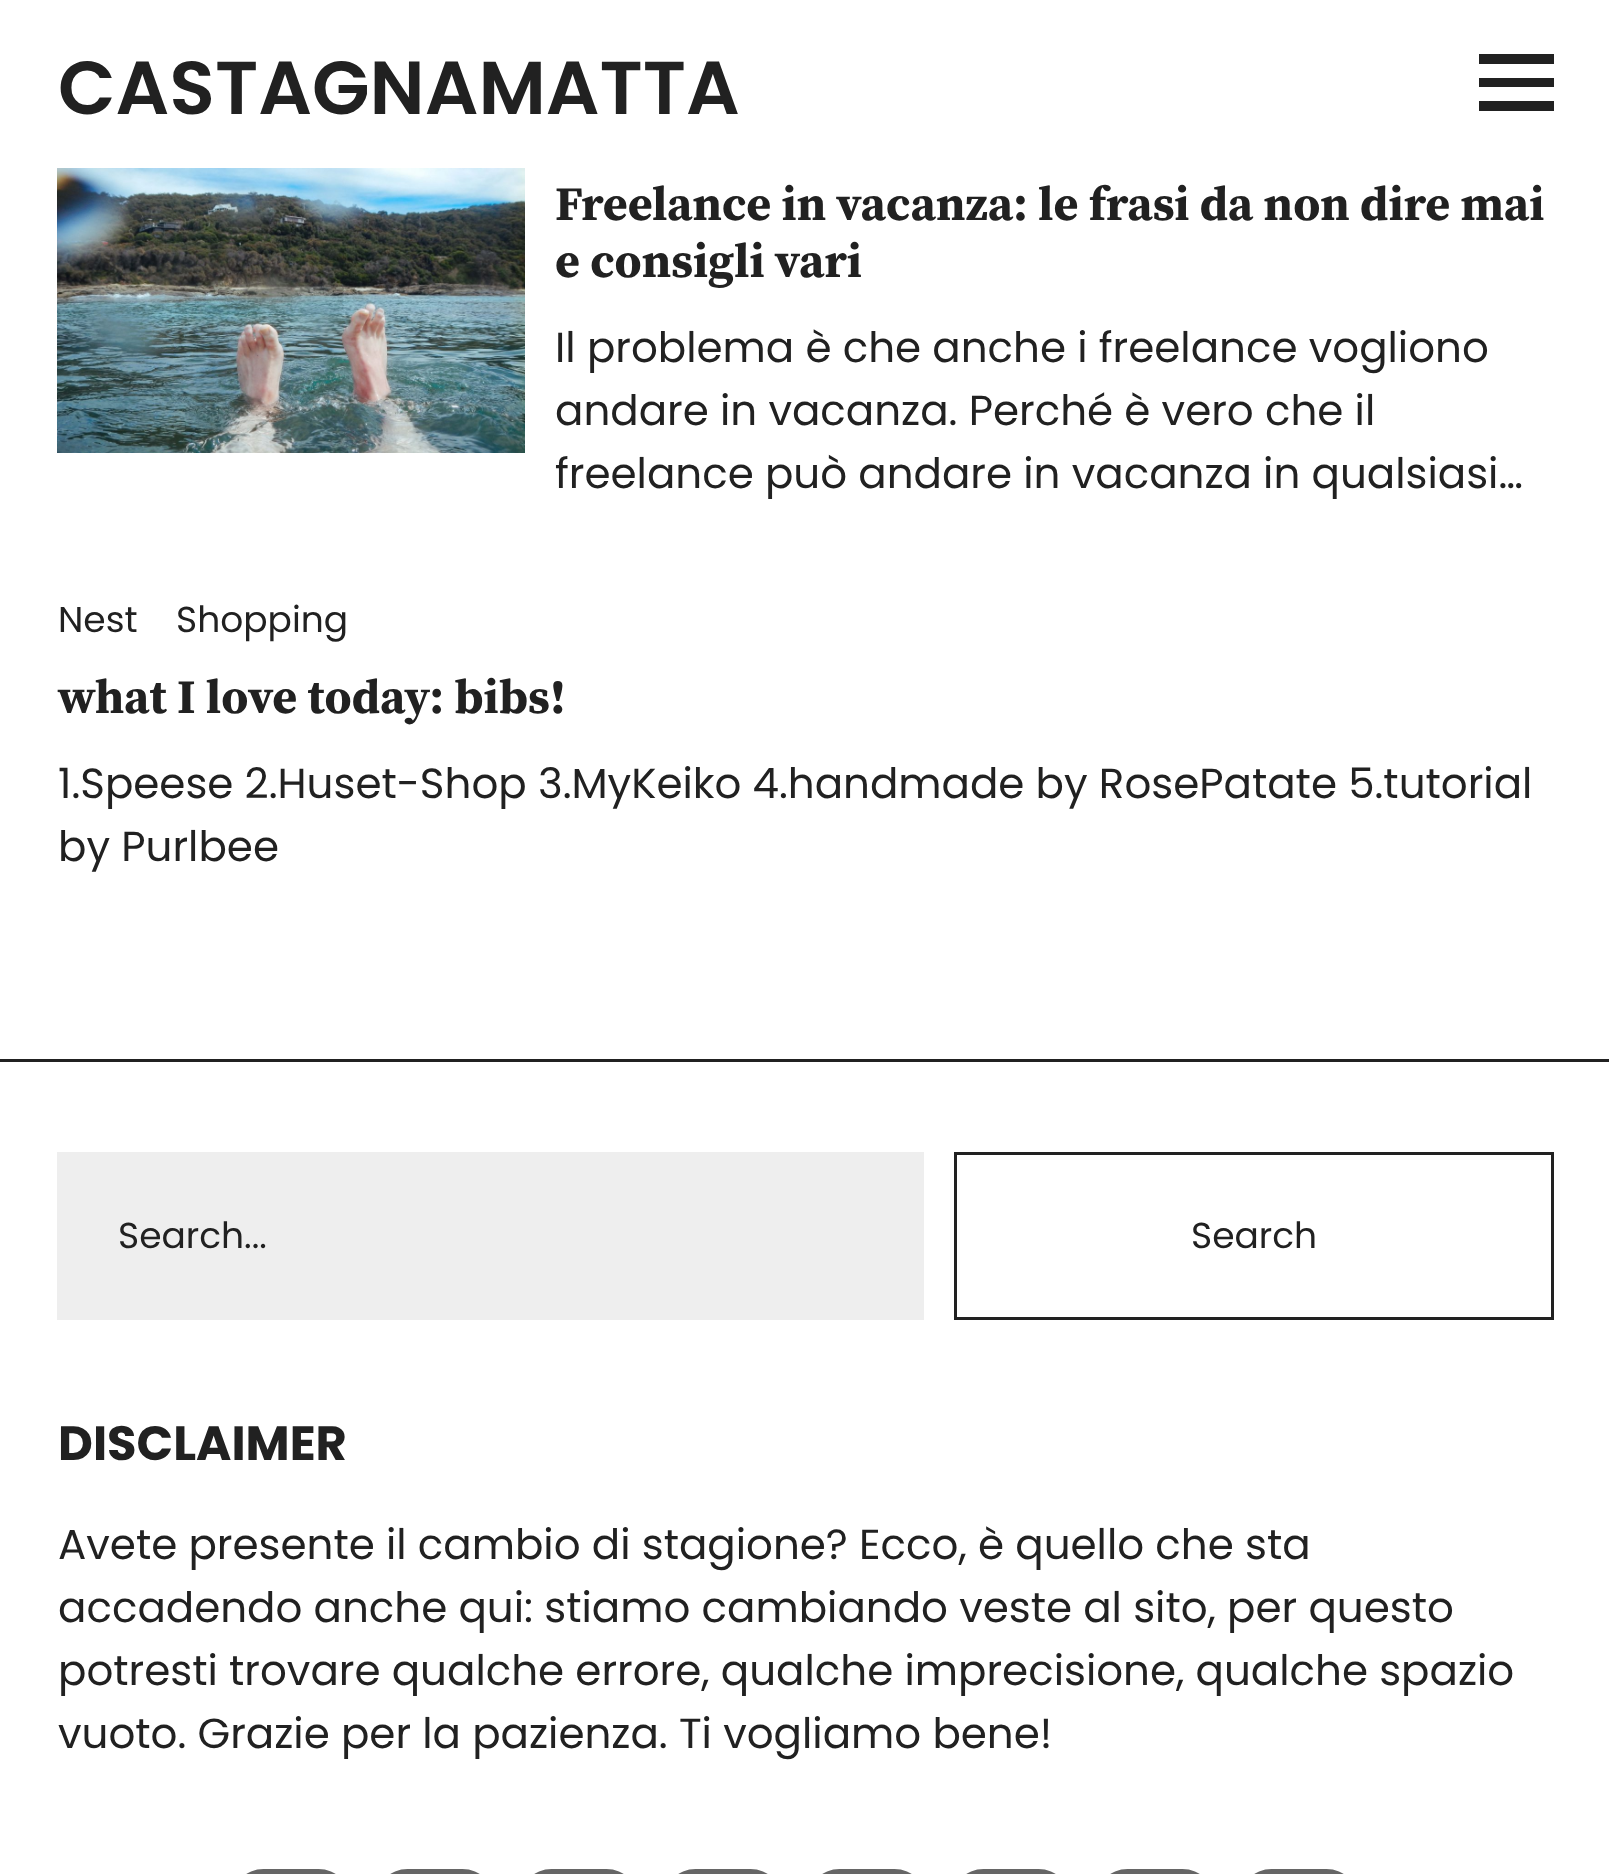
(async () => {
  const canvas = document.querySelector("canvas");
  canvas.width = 1609;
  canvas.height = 1874;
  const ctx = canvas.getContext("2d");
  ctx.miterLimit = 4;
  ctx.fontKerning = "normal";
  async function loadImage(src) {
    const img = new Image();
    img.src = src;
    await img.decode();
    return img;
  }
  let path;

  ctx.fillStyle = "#ffffff";
  ctx.fillRect(0, 0, 1609, 1874);
  ctx.fillStyle = "#212121";
  path = new Path2D("M1479 111V101H1554V111ZM1479 54H1554V64H1479ZM1479 87V78H1554V87Z");
  ctx.fill(path);
  ctx.fillRect(0, 1059, 1609, 3);
  ctx.drawImage(await loadImage("img/1.png"), 57, 168, 468, 285);
  ctx.fillStyle = "#eeeeee";
  ctx.fillRect(57, 1152, 867, 168);
  ctx.strokeStyle = "#212121";
  ctx.lineWidth = 3;
  ctx.strokeRect(955.5, 1153.5, 597, 165);
  ctx.fillStyle = "#666666";
  ctx.beginPath();
  ctx.roundRect(231, 1869, 120, 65, 60);
  ctx.fill();
  ctx.beginPath();
  ctx.roundRect(375, 1869, 120, 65, 60);
  ctx.fill();
  ctx.beginPath();
  ctx.roundRect(519, 1869, 120, 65, 60);
  ctx.fill();
  ctx.beginPath();
  ctx.roundRect(663, 1869, 120, 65, 60);
  ctx.fill();
  ctx.beginPath();
  ctx.roundRect(807, 1869, 120, 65, 60);
  ctx.fill();
  ctx.beginPath();
  ctx.roundRect(951, 1869, 120, 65, 60);
  ctx.fill();
  ctx.beginPath();
  ctx.roundRect(1095, 1869, 120, 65, 60);
  ctx.fill();
  ctx.beginPath();
  ctx.roundRect(1239, 1869, 120, 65, 60);
  ctx.fill();
  ctx.font = "600 75px Poppins";
  ctx.fillStyle = "#212121";
  ctx.fillText("CASTAGNAMATTA", 58, 114);
  ctx.font = "bold 48px Source Serif Pro";
  ctx.fillText("Freelance in vacanza: le frasi da non dire mai", 555, 220);
  ctx.fillText("e consigli vari", 555, 277);
  ctx.font = "42px Poppins";
  for (const [text, x, y] of [
    ["Il problema è che anche i freelance vogliono", 555, 362],
    ["andare in vacanza. Perché è vero che il", 555, 425],
    ["freelance può andare in vacanza in qualsiasi…", 555, 488],
  ]) {
    ctx.fillText(text, x, y);
  }
  ctx.font = "36px Poppins";
  ctx.fillText("Nest", 58, 632);
  ctx.fillText("Shopping", 176, 632);
  ctx.font = "bold 48px Source Serif Pro";
  ctx.fillText("what I love today: bibs!", 58, 713);
  ctx.font = "42px Poppins";
  ctx.fillText("1.Speese 2.Huset-Shop 3.MyKeiko 4.handmade by RosePatate 5.tutorial", 58, 798);
  ctx.fillText("by Purlbee", 58, 861);
  ctx.font = "36px Poppins";
  ctx.fillText("Search...", 118, 1248);
  ctx.fillText("Search", 1191, 1248);
  ctx.font = "bold 48px Poppins";
  ctx.fillText("DISCLAIMER", 58, 1460);
  ctx.font = "42px Poppins";
  for (const [text, x, y] of [
    ["Avete presente il cambio di stagione? Ecco, è quello che sta", 58, 1559],
    ["accadendo anche qui: stiamo cambiando veste al sito, per questo", 58, 1622],
    ["potresti trovare qualche errore, qualche imprecisione, qualche spazio", 58, 1685],
    ["vuoto. Grazie per la pazienza. Ti vogliamo bene!", 58, 1748],
  ]) {
    ctx.fillText(text, x, y);
  }
})();
